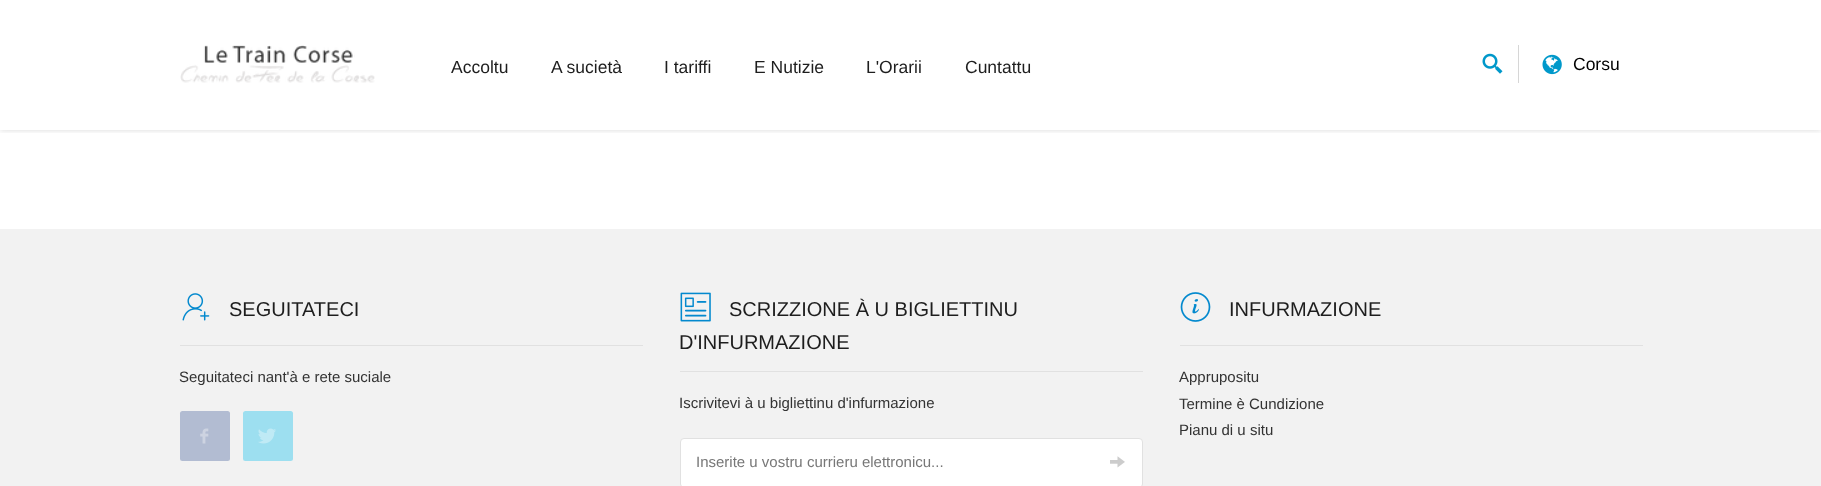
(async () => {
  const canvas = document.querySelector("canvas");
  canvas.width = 1821;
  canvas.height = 486;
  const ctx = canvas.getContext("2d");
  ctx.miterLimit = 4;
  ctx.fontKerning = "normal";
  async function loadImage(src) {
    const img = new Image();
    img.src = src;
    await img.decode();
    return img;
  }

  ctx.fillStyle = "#ffffff";
  ctx.fillRect(0, 0, 1821, 486);
  ctx.save();
  ctx.beginPath();
  ctx.rect(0, 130, 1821, 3);
  ctx.clip();
  ctx.fillStyle = "rgba(0, 0, 0, 0.15)";
  ctx.filter = "blur(3px)";
  ctx.beginPath();
  ctx.rect(0, 0, 1821, 130);
  ctx.fill();
  ctx.filter = "none";
  ctx.restore();
  ctx.drawImage(await loadImage("img/1.png"), 180, 45, 195, 38);
  ctx.fillStyle = "#d6d6d6";
  ctx.fillRect(1518, 45, 1, 38);
  ctx.drawImage(await loadImage("img/2.png"), 1482, 53, 21, 21);
  ctx.drawImage(await loadImage("img/3.png"), 1542, 54, 20, 21);
  ctx.fillStyle = "#f2f2f2";
  ctx.fillRect(0, 229, 1821, 257);
  ctx.fillStyle = "#e1e1e1";
  ctx.fillRect(180, 345, 463, 1);
  ctx.drawImage(await loadImage("img/4.png"), 182, 293, 28, 28);
  ctx.fillStyle = "#b2bcd2";
  ctx.beginPath();
  ctx.roundRect(180, 411, 50, 50, 2.5);
  ctx.fill();
  ctx.drawImage(await loadImage("img/5.png"), 200, 428, 9, 16);
  ctx.fillStyle = "#9ddff0";
  ctx.beginPath();
  ctx.roundRect(243, 411, 50, 50, 2.5);
  ctx.fill();
  ctx.drawImage(await loadImage("img/6.png"), 258, 428, 18, 16);
  ctx.fillStyle = "#e1e1e1";
  ctx.fillRect(680, 371, 463, 1);
  ctx.drawImage(await loadImage("img/7.png"), 680, 292, 31, 30);
  ctx.fillStyle = "#ffffff";
  ctx.beginPath();
  ctx.roundRect(680.5, 438.5, 462, 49, 3.5);
  ctx.fill();
  ctx.strokeStyle = "#e1e1e1";
  ctx.stroke();
  ctx.drawImage(await loadImage("img/8.png"), 1110, 456, 15, 12);
  ctx.fillStyle = "#e1e1e1";
  ctx.fillRect(1180, 345, 463, 1);
  ctx.drawImage(await loadImage("img/9.png"), 1180, 292, 31, 30);
  ctx.font = "17.5px Liberation Sans";
  ctx.fillStyle = "#1e1e1e";
  for (const [text, x, y] of [
    ["Accoltu", 451, 73],
    ["A sucietà", 551, 73],
    ["I tariffi", 664, 73],
    ["E Nutizie", 754, 73],
    ["L'Orarii", 866, 73],
    ["Cuntattu", 965, 73],
  ]) {
    ctx.fillText(text, x, y);
  }
  ctx.fillStyle = "#000000";
  ctx.fillText("Corsu", 1573, 70);
  ctx.font = "20px Liberation Sans";
  ctx.fillStyle = "#1e1e1e";
  ctx.fillText("SEGUITATECI", 229, 316);
  ctx.font = "15px Liberation Sans";
  ctx.fillStyle = "#333333";
  ctx.fillText("Seguitateci nant'à e rete suciale", 179, 382);
  ctx.font = "20px Liberation Sans";
  ctx.fillStyle = "#1e1e1e";
  ctx.fillText("SCRIZZIONE À U BIGLIETTINU", 729, 316);
  ctx.fillText("D'INFURMAZIONE", 679, 349);
  ctx.font = "15px Liberation Sans";
  ctx.fillStyle = "#333333";
  ctx.fillText("Iscrivitevi à u bigliettinu d'infurmazione", 679, 408);
  ctx.fillStyle = "#777777";
  ctx.fillText("Inserite u vostru currieru elettronicu...", 696, 467);
  ctx.font = "20px Liberation Sans";
  ctx.fillStyle = "#1e1e1e";
  ctx.fillText("INFURMAZIONE", 1229, 316);
  ctx.font = "15px Liberation Sans";
  ctx.fillStyle = "#333333";
  for (const [text, x, y] of [
    ["Apprupositu", 1179, 382],
    ["Termine è Cundizione", 1179, 409],
    ["Pianu di u situ", 1179, 435],
  ]) {
    ctx.fillText(text, x, y);
  }
})();
